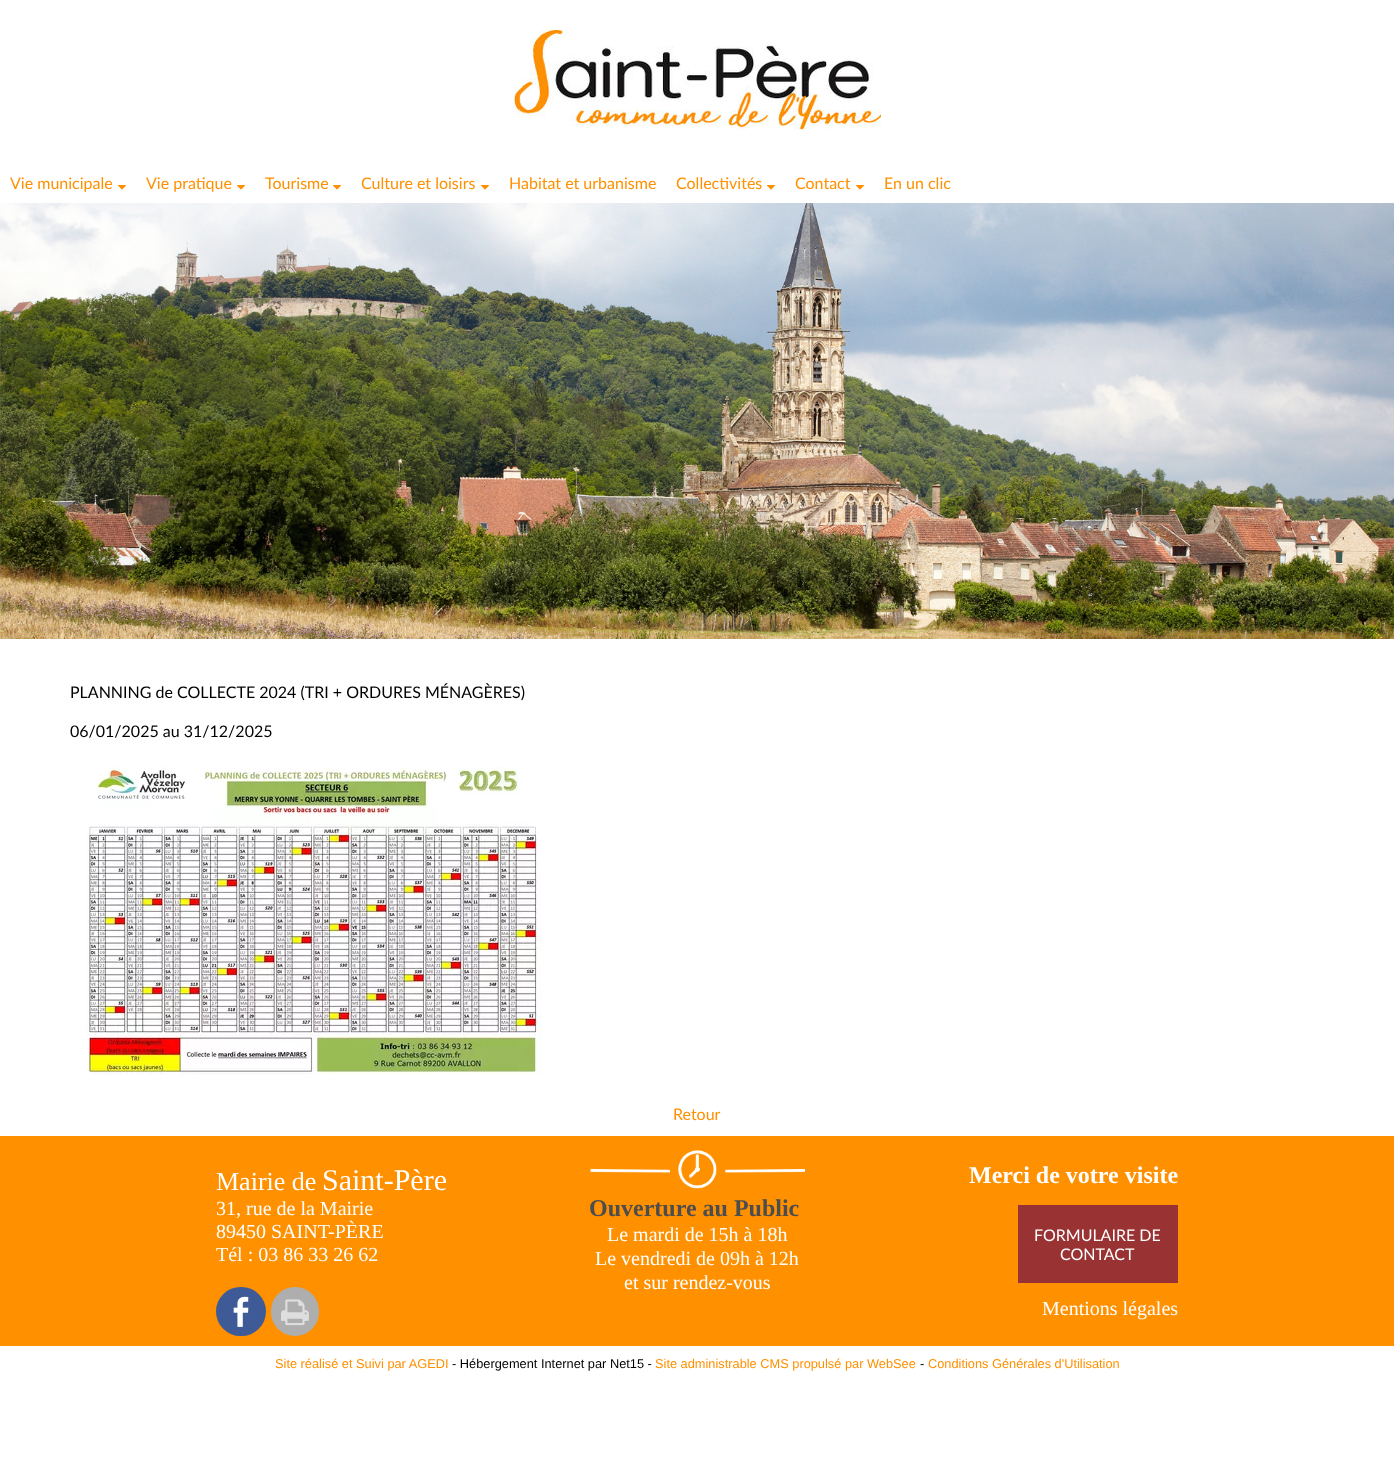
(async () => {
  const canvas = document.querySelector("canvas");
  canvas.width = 1394;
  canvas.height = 1483;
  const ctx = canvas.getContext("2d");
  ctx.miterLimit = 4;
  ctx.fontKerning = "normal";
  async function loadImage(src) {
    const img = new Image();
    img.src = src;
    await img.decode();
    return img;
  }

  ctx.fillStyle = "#ffffff";
  ctx.fillRect(0, 0, 1394, 1483);
  ctx.drawImage(await loadImage("img/1.png"), 514, 30, 367, 100);
  ctx.drawImage(await loadImage("img/2.png"), 118, 185, 8, 5);
  ctx.drawImage(await loadImage("img/2.png"), 237, 185, 8, 5);
  ctx.drawImage(await loadImage("img/2.png"), 333, 185, 8, 5);
  ctx.drawImage(await loadImage("img/2.png"), 481, 185, 8, 5);
  ctx.drawImage(await loadImage("img/2.png"), 767, 185, 8, 5);
  ctx.drawImage(await loadImage("img/2.png"), 856, 185, 8, 5);
  ctx.drawImage(await loadImage("img/3.png"), 0, 203, 1394, 436);
  ctx.drawImage(await loadImage("img/4.png"), 952, 499, 363, 56);
  ctx.drawImage(await loadImage("img/5.png"), 86, 767, 456, 308);
  ctx.fillStyle = "#ff9000";
  ctx.fillRect(0, 1136, 1394, 210);
  ctx.fillStyle = "#3e5b98";
  ctx.beginPath();
  ctx.roundRect(216, 1287, 50, 49, 24.5);
  ctx.fill();
  ctx.drawImage(await loadImage("img/6.png"), 233, 1296, 16, 31);
  ctx.fillStyle = "#aeaeae";
  ctx.beginPath();
  ctx.roundRect(271, 1287, 48, 49, 24);
  ctx.fill();
  ctx.drawImage(await loadImage("img/7.png"), 281, 1299, 28, 27);
  ctx.drawImage(await loadImage("img/8.png"), 590, 1150, 215, 39);
  ctx.fillStyle = "#993333";
  ctx.fillRect(1018, 1205, 160, 78);
  ctx.font = "16px Lato";
  ctx.fillStyle = "#ff9000";
  for (const [text, x, y] of [
    ["Vie municipale", 10, 189],
    ["Vie pratique", 146, 189],
    ["Tourisme", 265, 189],
    ["Culture et loisirs", 361, 189],
    ["Habitat et urbanisme", 509, 189],
    ["Collectivités", 676, 189],
    ["Contact", 795, 189],
    ["En un clic", 884, 189],
  ]) {
    ctx.fillText(text, x, y);
  }
  ctx.fillStyle = "#000000";
  ctx.fillText("PLANNING de COLLECTE 2024 (TRI + ORDURES MÉNAGÈRES)", 70, 698);
  ctx.fillText("06/01/2025 au 31/12/2025", 70, 737);
  ctx.fillStyle = "#ff9000";
  ctx.fillText("Retour", 673, 1120);
  ctx.font = "26px Liberation Serif";
  ctx.fillStyle = "#ffffff";
  ctx.fillText("Mairie de", 216, 1190);
  ctx.font = "30px Liberation Serif";
  ctx.fillText("Saint-Père", 322, 1190);
  ctx.font = "20px Liberation Serif";
  for (const [text, x, y] of [
    ["31, rue de la Mairie", 216, 1215],
    ["89450 SAINT-PÈRE", 216, 1238],
    ["Tél : 03 86 33 26 62", 216, 1261],
  ]) {
    ctx.fillText(text, x, y);
  }
  ctx.font = "bold 24px Liberation Serif";
  ctx.fillStyle = "#4d4d4d";
  ctx.fillText("Ouverture au Public", 589, 1216);
  ctx.font = "20px Liberation Serif";
  ctx.fillStyle = "#ffffff";
  for (const [text, x, y] of [
    ["Le mardi de 15h à 18h", 607, 1241],
    ["Le vendredi de 09h à 12h", 595, 1265],
    ["et sur rendez-vous", 624, 1289],
  ]) {
    ctx.fillText(text, x, y);
  }
  ctx.font = "bold 24px Liberation Serif";
  ctx.fillText("Merci de votre visite", 969, 1183);
  ctx.font = "16px Lato";
  ctx.fillText("FORMULAIRE DE", 1034, 1241);
  ctx.fillText("CONTACT", 1060, 1260);
  ctx.font = "20px Liberation Serif";
  ctx.fillText("Mentions légales", 1042, 1315);
  ctx.font = "12.8px Liberation Sans";
  ctx.fillStyle = "#ff9000";
  ctx.fillText("Site réalisé et Suivi par AGEDI", 275, 1368);
  ctx.fillStyle = "#000000";
  ctx.fillText("- Hébergement Internet par Net15 -", 452, 1368);
  ctx.fillStyle = "#ff9000";
  ctx.fillText("Site administrable CMS propulsé par WebSee", 655, 1368);
  ctx.fillStyle = "#000000";
  ctx.fillText("-", 920, 1368);
  ctx.fillStyle = "#ff9000";
  ctx.fillText("Conditions Générales d'Utilisation", 928, 1368);
})();
